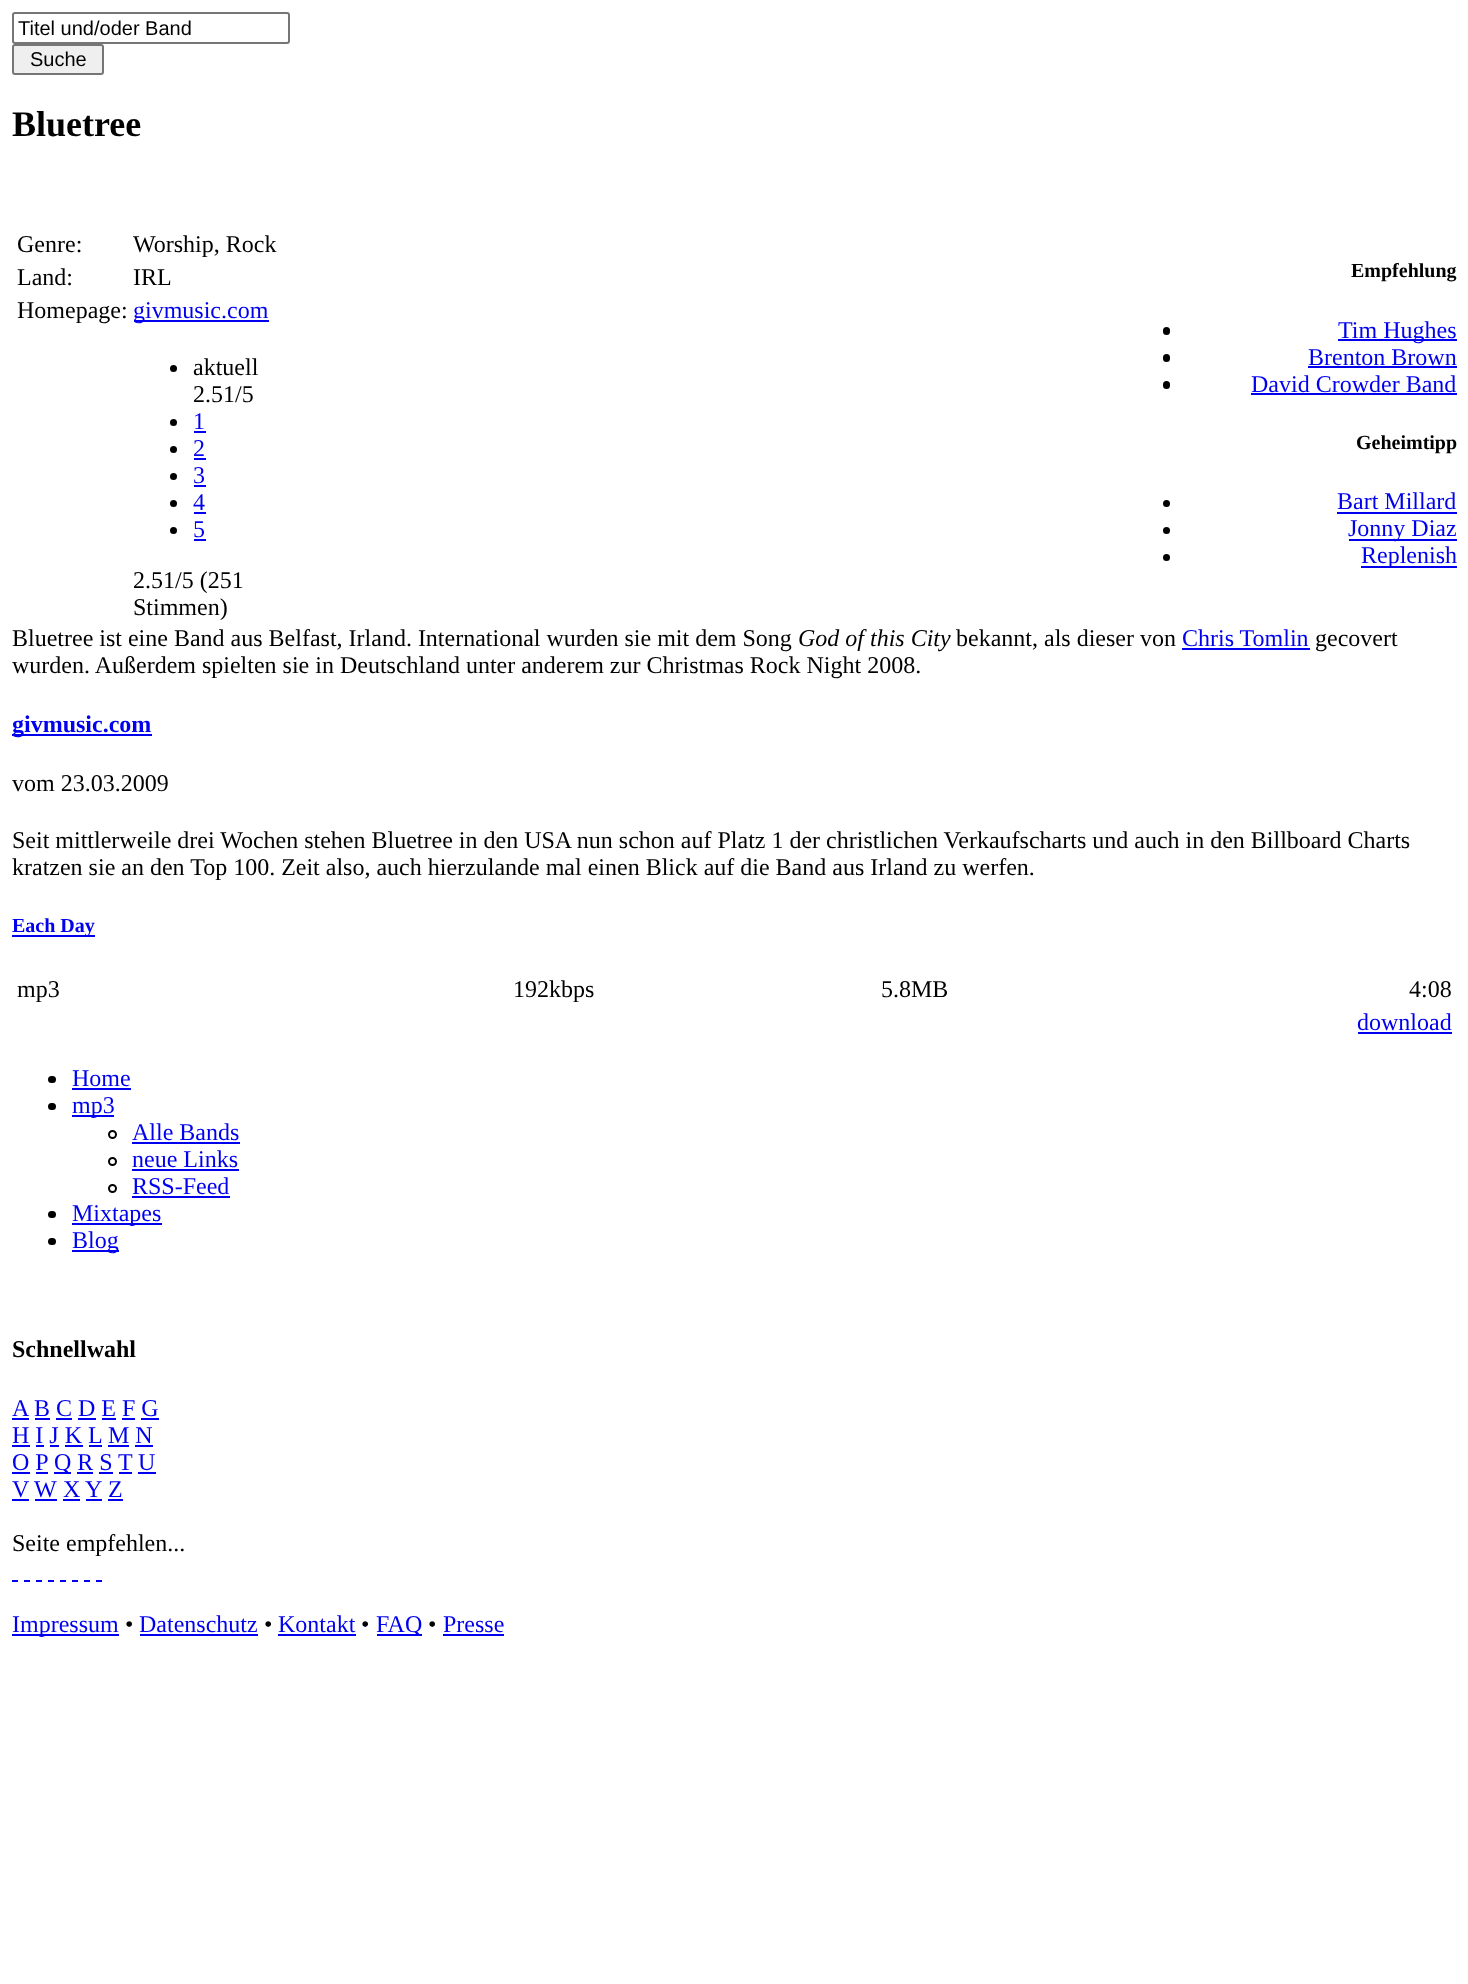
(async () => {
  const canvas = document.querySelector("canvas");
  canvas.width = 1468;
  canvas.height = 1984;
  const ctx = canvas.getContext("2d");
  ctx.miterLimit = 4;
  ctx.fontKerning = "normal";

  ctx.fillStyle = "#ffffff";
  ctx.fillRect(0, 0, 1468, 1984);
  ctx.beginPath();
  ctx.roundRect(13, 13, 276, 30, 2);
  ctx.strokeStyle = "#767676";
  ctx.lineWidth = 2;
  ctx.stroke();
  ctx.fillStyle = "#efefef";
  ctx.beginPath();
  ctx.roundRect(13, 45, 90, 29, 2);
  ctx.fill();
  ctx.stroke();
  ctx.fillStyle = "#0000ee";
  ctx.fillRect(134, 320, 135, 2);
  ctx.fillStyle = "#000000";
  ctx.beginPath();
  ctx.arc(173.5, 368.5, 3.5, 0, Math.PI * 2);
  ctx.fill();
  ctx.beginPath();
  ctx.arc(173.5, 422.5, 3.5, 0, Math.PI * 2);
  ctx.fill();
  ctx.fillStyle = "#0000ee";
  ctx.fillRect(194, 431, 12, 2);
  ctx.fillStyle = "#000000";
  ctx.beginPath();
  ctx.arc(173.5, 449.5, 3.5, 0, Math.PI * 2);
  ctx.fill();
  ctx.fillStyle = "#0000ee";
  ctx.fillRect(194, 458, 12, 2);
  ctx.fillStyle = "#000000";
  ctx.beginPath();
  ctx.arc(173.5, 476.5, 3.5, 0, Math.PI * 2);
  ctx.fill();
  ctx.fillStyle = "#0000ee";
  ctx.fillRect(194, 485, 12, 2);
  ctx.fillStyle = "#000000";
  ctx.beginPath();
  ctx.arc(173.5, 503.5, 3.5, 0, Math.PI * 2);
  ctx.fill();
  ctx.fillStyle = "#0000ee";
  ctx.fillRect(194, 512, 12, 2);
  ctx.fillStyle = "#000000";
  ctx.beginPath();
  ctx.arc(173.5, 530.5, 3.5, 0, Math.PI * 2);
  ctx.fill();
  ctx.fillStyle = "#0000ee";
  ctx.fillRect(194, 539, 12, 2);
  ctx.fillStyle = "#000000";
  ctx.beginPath();
  ctx.roundRect(1163, 327, 7, 8, 3.5);
  ctx.fill();
  ctx.fillStyle = "#0000ee";
  ctx.fillRect(1338, 339, 119, 2);
  ctx.fillStyle = "#000000";
  ctx.beginPath();
  ctx.roundRect(1163, 354, 7, 8, 3.5);
  ctx.fill();
  ctx.fillStyle = "#0000ee";
  ctx.fillRect(1308, 366, 149, 2);
  ctx.fillStyle = "#000000";
  ctx.beginPath();
  ctx.roundRect(1163, 381, 7, 8, 3.5);
  ctx.fill();
  ctx.fillStyle = "#0000ee";
  ctx.fillRect(1251, 393, 206, 2);
  ctx.fillStyle = "#000000";
  ctx.beginPath();
  ctx.arc(1166.5, 503.5, 3.5, 0, Math.PI * 2);
  ctx.fill();
  ctx.fillStyle = "#0000ee";
  ctx.fillRect(1337, 512, 120, 2);
  ctx.fillStyle = "#000000";
  ctx.beginPath();
  ctx.arc(1166.5, 530.5, 3.5, 0, Math.PI * 2);
  ctx.fill();
  ctx.fillStyle = "#0000ee";
  ctx.fillRect(1349, 539, 108, 2);
  ctx.fillStyle = "#000000";
  ctx.beginPath();
  ctx.arc(1166.5, 557.5, 3.5, 0, Math.PI * 2);
  ctx.fill();
  for (const [x, y, w, h, color] of [
    [1361, 566, 96, 2, "#0000ee"],
    [1182, 648, 128, 2, "#0000ee"],
    [12, 734, 140, 2, "#0000ee"],
    [12, 935, 83, 2, "#0000ee"],
    [1358, 1032, 94, 2, "#0000ee"],
  ]) {
    ctx.fillStyle = color;
    ctx.fillRect(x, y, w, h);
  }
  ctx.fillStyle = "#000000";
  ctx.beginPath();
  ctx.roundRect(48, 1076, 8, 7, 3.5);
  ctx.fill();
  ctx.fillStyle = "#0000ee";
  ctx.fillRect(72, 1088, 59, 2);
  ctx.fillStyle = "#000000";
  ctx.beginPath();
  ctx.roundRect(48, 1103, 8, 7, 3.5);
  ctx.fill();
  ctx.fillStyle = "#0000ee";
  ctx.fillRect(72, 1115, 42, 2);
  ctx.beginPath();
  ctx.arc(112.5, 1134.5, 3.5, 0, Math.PI * 2);
  ctx.strokeStyle = "#000000";
  ctx.stroke();
  ctx.fillRect(132, 1142, 108, 2);
  ctx.beginPath();
  ctx.arc(112.5, 1161.5, 3.5, 0, Math.PI * 2);
  ctx.stroke();
  ctx.fillRect(132, 1169, 107, 2);
  ctx.beginPath();
  ctx.arc(112.5, 1188.5, 3.5, 0, Math.PI * 2);
  ctx.stroke();
  ctx.fillRect(132, 1196, 98, 2);
  ctx.fillStyle = "#000000";
  ctx.beginPath();
  ctx.roundRect(48, 1211, 8, 7, 3.5);
  ctx.fill();
  ctx.fillStyle = "#0000ee";
  ctx.fillRect(72, 1223, 90, 2);
  ctx.fillStyle = "#000000";
  ctx.beginPath();
  ctx.roundRect(48, 1238, 8, 7, 3.5);
  ctx.fill();
  for (const [x, y, w, h, color] of [
    [72, 1250, 47, 2, "#0000ee"],
    [12, 1418, 17, 2, "#0000ee"],
    [35, 1418, 15, 2, "#0000ee"],
    [56, 1418, 16, 2, "#0000ee"],
    [78, 1418, 18, 2, "#0000ee"],
    [102, 1418, 14, 2, "#0000ee"],
    [122, 1418, 13, 2, "#0000ee"],
    [141, 1418, 18, 2, "#0000ee"],
    [12, 1445, 18, 2, "#0000ee"],
    [108, 1445, 21, 2, "#0000ee"],
    [36, 1445, 8, 2, "#0000ee"],
    [50, 1445, 9, 2, "#0000ee"],
    [65, 1445, 18, 2, "#0000ee"],
    [89, 1445, 13, 2, "#0000ee"],
    [135, 1445, 18, 2, "#0000ee"],
    [12, 1472, 18, 2, "#0000ee"],
    [54, 1472, 17, 2, "#0000ee"],
    [119, 1472, 13, 2, "#0000ee"],
    [138, 1472, 18, 2, "#0000ee"],
    [36, 1472, 12, 2, "#0000ee"],
    [77, 1472, 16, 2, "#0000ee"],
    [99, 1472, 14, 2, "#0000ee"],
    [12, 1499, 17, 2, "#0000ee"],
    [35, 1499, 22, 2, "#0000ee"],
    [63, 1499, 17, 2, "#0000ee"],
    [86, 1499, 16, 2, "#0000ee"],
    [108, 1499, 15, 2, "#0000ee"],
    [12, 1580, 6, 2, "#0000ee"],
    [24, 1580, 6, 2, "#0000ee"],
    [36, 1580, 6, 2, "#0000ee"],
    [48, 1580, 6, 2, "#0000ee"],
    [60, 1580, 6, 2, "#0000ee"],
    [72, 1580, 6, 2, "#0000ee"],
    [84, 1580, 6, 2, "#0000ee"],
    [96, 1580, 6, 2, "#0000ee"],
    [12, 1634, 107, 2, "#0000ee"],
    [140, 1634, 118, 2, "#0000ee"],
    [278, 1634, 78, 2, "#0000ee"],
    [377, 1634, 45, 2, "#0000ee"],
    [443, 1634, 61, 2, "#0000ee"],
  ]) {
    ctx.fillStyle = color;
    ctx.fillRect(x, y, w, h);
  }
  ctx.font = "20px Liberation Sans";
  ctx.fillStyle = "#000000";
  ctx.fillText("Titel und/oder Band", 18, 35);
  ctx.fillText("Suche", 30, 66);
  ctx.font = "bold 36px Liberation Serif";
  ctx.fillText("Bluetree", 12, 136);
  ctx.font = "24px Liberation Serif";
  for (const [text, x, y] of [
    ["Genre:", 17, 252],
    ["Worship, Rock", 133, 252],
    ["Land:", 17, 285],
    ["IRL", 133, 285],
    ["Homepage:", 17, 318],
  ]) {
    ctx.fillText(text, x, y);
  }
  ctx.fillStyle = "#0000ee";
  ctx.fillText("givmusic.com", 133, 318);
  ctx.fillStyle = "#000000";
  ctx.fillText("aktuell", 193, 375);
  ctx.fillText("2.51/5", 193, 402);
  ctx.fillStyle = "#0000ee";
  for (const [text, x, y] of [
    ["1", 193, 429],
    ["2", 193, 456],
    ["3", 193, 483],
    ["4", 193, 510],
    ["5", 193, 537],
  ]) {
    ctx.fillText(text, x, y);
  }
  ctx.fillStyle = "#000000";
  ctx.fillText("2.51/5 (251", 133, 588);
  ctx.fillText("Stimmen)", 133, 615);
  ctx.font = "bold 20px Liberation Serif";
  ctx.fillText("Empfehlung", 1351, 277);
  ctx.font = "24px Liberation Serif";
  ctx.fillStyle = "#0000ee";
  for (const [text, x, y] of [
    ["Tim Hughes", 1338, 338],
    ["Brenton Brown", 1308, 365],
    ["David Crowder Band", 1251, 392],
  ]) {
    ctx.fillText(text, x, y);
  }
  ctx.font = "bold 20px Liberation Serif";
  ctx.fillStyle = "#000000";
  ctx.fillText("Geheimtipp", 1356, 449);
  ctx.font = "24px Liberation Serif";
  ctx.fillStyle = "#0000ee";
  for (const [text, x, y] of [
    ["Bart Millard", 1337, 509],
    ["Jonny Diaz", 1348, 536],
    ["Replenish", 1361, 563],
  ]) {
    ctx.fillText(text, x, y);
  }
  ctx.fillStyle = "#000000";
  ctx.fillText("Bluetree ist eine Band aus Belfast, Irland. International wurden sie mit dem Song", 12, 646);
  ctx.font = "italic 24px Liberation Serif";
  ctx.fillText("God of this City", 798, 646);
  ctx.font = "24px Liberation Serif";
  ctx.fillText("bekannt, als dieser von", 956, 646);
  ctx.fillStyle = "#0000ee";
  ctx.fillText("Chris Tomlin", 1182, 646);
  ctx.fillStyle = "#000000";
  ctx.fillText("gecovert", 1315, 646);
  ctx.fillText("wurden. Außerdem spielten sie in Deutschland unter anderem zur Christmas Rock Night 2008.", 12, 673);
  ctx.font = "bold 24px Liberation Serif";
  ctx.fillStyle = "#0000ee";
  ctx.fillText("givmusic.com", 12, 732);
  ctx.font = "24px Liberation Serif";
  ctx.fillStyle = "#000000";
  for (const [text, x, y] of [
    ["vom 23.03.2009", 12, 791],
    ["Seit mittlerweile drei Wochen stehen Bluetree in den USA nun schon auf Platz 1 der christlichen Verkaufscharts und auch in den Billboard Charts", 12, 848],
    ["kratzen sie an den Top 100. Zeit also, auch hierzulande mal einen Blick auf die Band aus Irland zu werfen.", 12, 875],
  ]) {
    ctx.fillText(text, x, y);
  }
  ctx.font = "bold 20px Liberation Serif";
  ctx.fillStyle = "#0000ee";
  ctx.fillText("Each Day", 12, 932);
  ctx.font = "24px Liberation Serif";
  ctx.fillStyle = "#000000";
  for (const [text, x, y] of [
    ["mp3", 17, 997],
    ["192kbps", 513, 997],
    ["5.8MB", 881, 997],
    ["4:08", 1409, 997],
  ]) {
    ctx.fillText(text, x, y);
  }
  ctx.fillStyle = "#0000ee";
  for (const [text, x, y] of [
    ["download", 1357, 1030],
    ["Home", 72, 1086],
    ["mp3", 72, 1113],
    ["Alle Bands", 132, 1140],
    ["neue Links", 132, 1167],
    ["RSS-Feed", 132, 1194],
    ["Mixtapes", 72, 1221],
    ["Blog", 72, 1248],
  ]) {
    ctx.fillText(text, x, y);
  }
  ctx.font = "bold 24px Liberation Serif";
  ctx.fillStyle = "#000000";
  ctx.fillText("Schnellwahl", 12, 1357);
  ctx.font = "24px Liberation Serif";
  ctx.fillStyle = "#0000ee";
  for (const [text, x, y] of [
    ["A", 12, 1416],
    ["B C D E F G", 34, 1416],
    ["H I J K L", 12, 1443],
    ["M N", 108, 1443],
    ["O P", 12, 1470],
    ["Q R S", 54, 1470],
    ["T", 118, 1470],
    ["U", 138, 1470],
    ["V", 12, 1497],
    ["W", 34, 1497],
    ["X", 63, 1497],
    ["Y", 85, 1497],
    ["Z", 108, 1497],
  ]) {
    ctx.fillText(text, x, y);
  }
  ctx.fillStyle = "#000000";
  ctx.fillText("Seite empfehlen...", 12, 1551);
  ctx.fillStyle = "#0000ee";
  ctx.fillText("Impressum", 12, 1632);
  ctx.fillStyle = "#000000";
  ctx.fillText("•", 125, 1632);
  ctx.fillStyle = "#0000ee";
  ctx.fillText("Datenschutz", 139, 1632);
  ctx.fillStyle = "#000000";
  ctx.fillText("•", 264, 1632);
  ctx.fillStyle = "#0000ee";
  ctx.fillText("Kontakt", 278, 1632);
  ctx.fillStyle = "#000000";
  ctx.fillText("•", 361, 1632);
  ctx.fillStyle = "#0000ee";
  ctx.fillText("FAQ", 376, 1632);
  ctx.fillStyle = "#000000";
  ctx.fillText("•", 428, 1632);
  ctx.fillStyle = "#0000ee";
  ctx.fillText("Presse", 443, 1632);
})();
